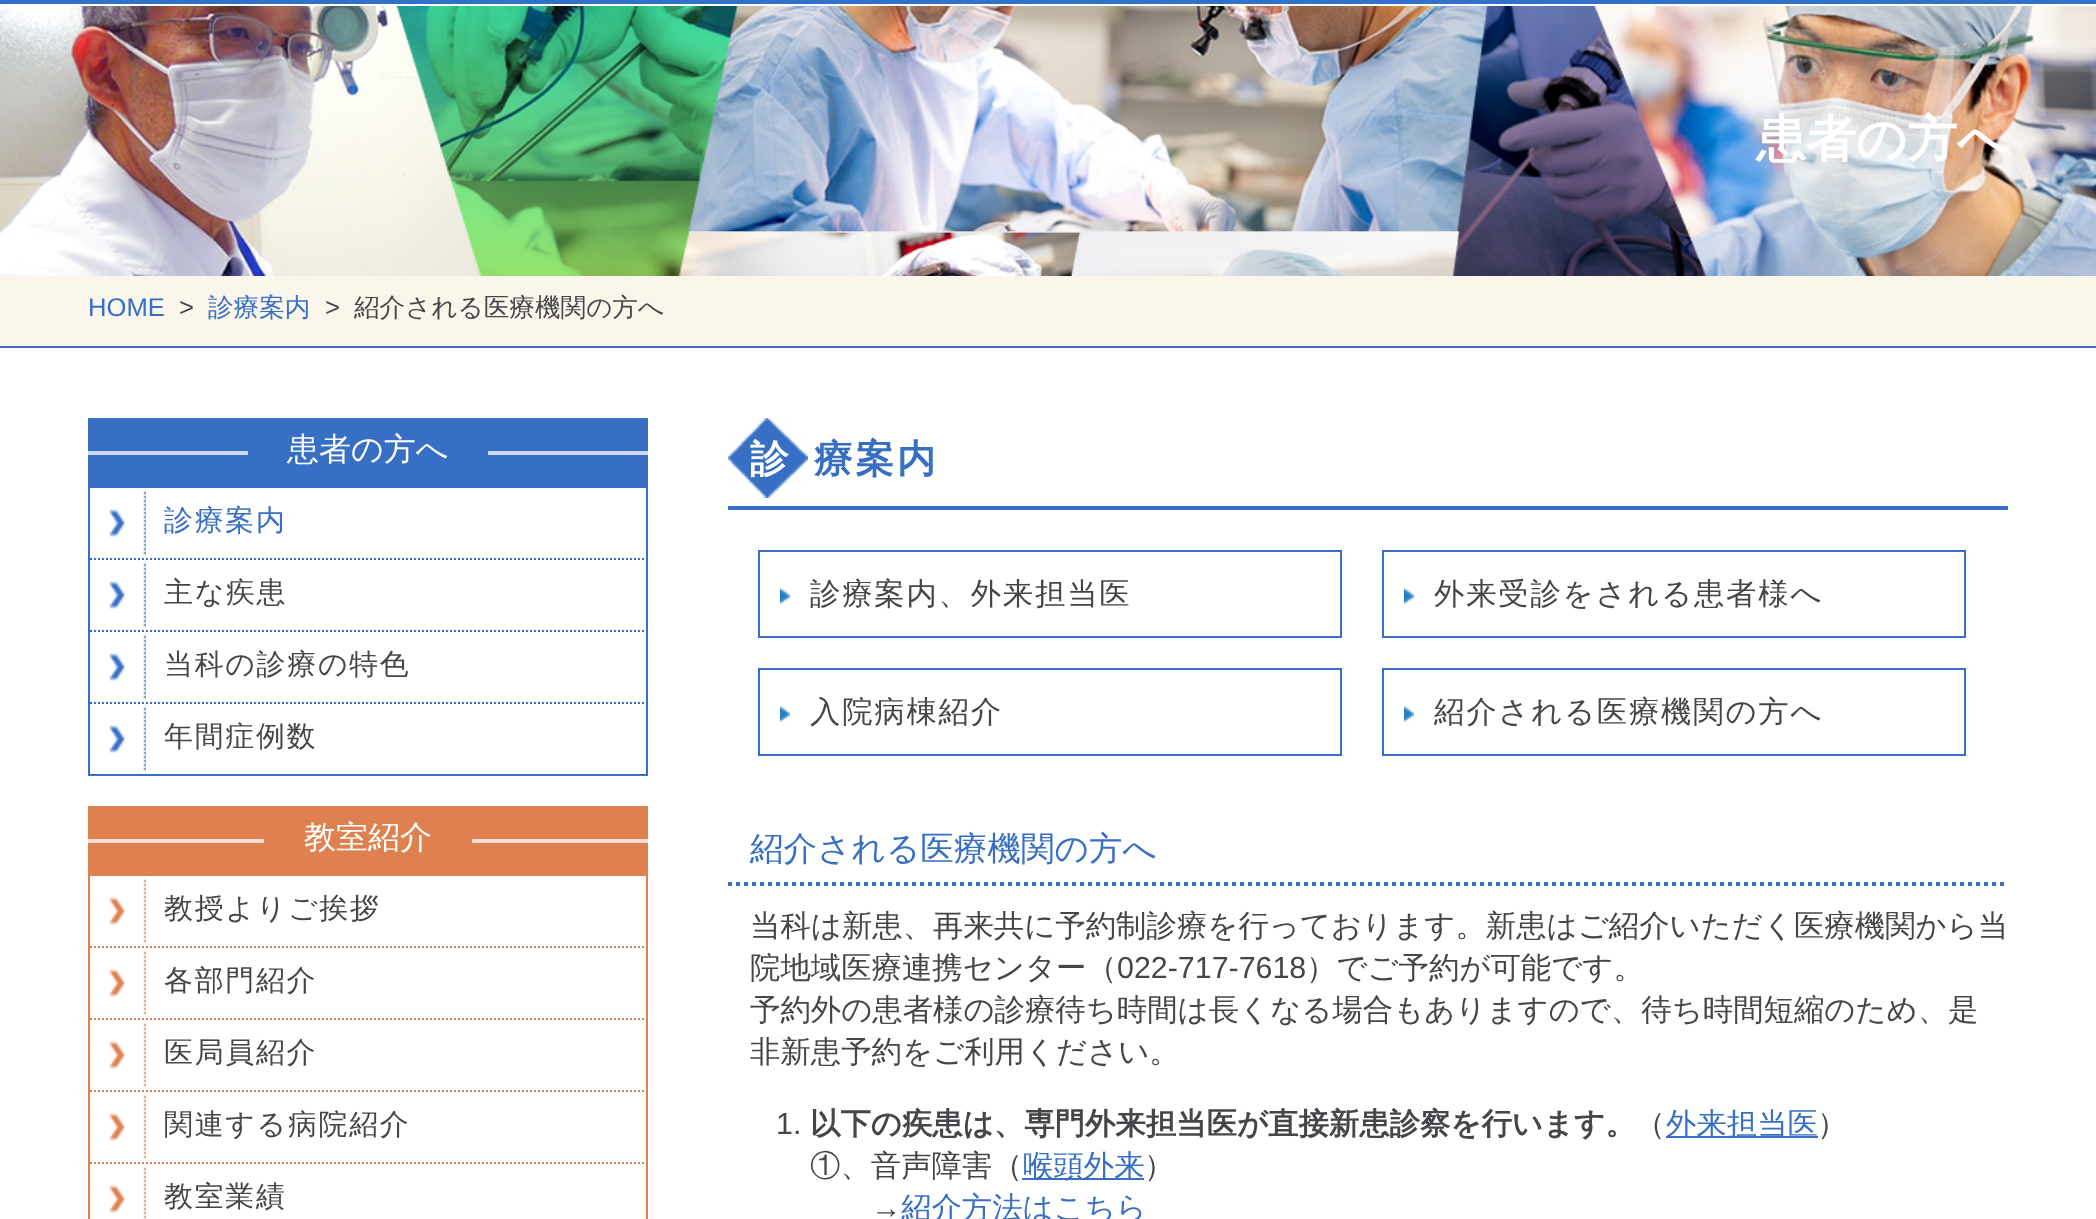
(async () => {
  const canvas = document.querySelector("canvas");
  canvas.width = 2096;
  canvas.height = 1219;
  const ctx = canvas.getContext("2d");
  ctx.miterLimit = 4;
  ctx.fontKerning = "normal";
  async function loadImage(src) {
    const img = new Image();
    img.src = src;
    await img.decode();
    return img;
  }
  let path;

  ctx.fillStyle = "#ffffff";
  ctx.fillRect(0, 0, 2096, 1219);
  ctx.drawImage(await loadImage("img/1.png"), 0, 6, 2096, 270);
  ctx.fillStyle = "#3071c9";
  ctx.fillRect(0, 0, 2096, 4);
  ctx.drawImage(await loadImage("img/2.png"), 0, 276, 2096, 70);
  for (const [x, y, w, h, color] of [
    [0, 346, 2096, 2, "#376fc4"],
    [88, 418, 560, 70, "#376fc4"],
    [88, 451, 560, 4, "#cddbf0"],
    [248, 451, 240, 4, "#376fc4"],
    [646, 488, 2, 288, "#376fc4"],
    [88, 774, 560, 2, "#376fc4"],
    [88, 488, 2, 288, "#376fc4"],
  ]) {
    ctx.fillStyle = color;
    ctx.fillRect(x, y, w, h);
  }
  path = new Path2D("M90 559H646");
  ctx.strokeStyle = "#376fc4";
  ctx.lineWidth = 2;
  ctx.setLineDash([2, 2]);
  ctx.stroke(path);
  ctx.drawImage(await loadImage("img/3.png"), 109, 491, 37, 64);
  path = new Path2D("M90 631H646");
  ctx.stroke(path);
  ctx.drawImage(await loadImage("img/3.png"), 109, 563, 37, 64);
  path = new Path2D("M90 703H646");
  ctx.stroke(path);
  ctx.drawImage(await loadImage("img/3.png"), 109, 635, 37, 64);
  ctx.drawImage(await loadImage("img/3.png"), 109, 707, 37, 64);
  for (const [x, y, w, h, color] of [
    [88, 806, 560, 70, "#df814e"],
    [88, 839, 560, 4, "#f7e0d3"],
    [264, 839, 208, 4, "#df814e"],
    [646, 876, 2, 343, "#df814e"],
    [88, 876, 2, 343, "#df814e"],
  ]) {
    ctx.fillStyle = color;
    ctx.fillRect(x, y, w, h);
  }
  path = new Path2D("M90 947H646");
  ctx.strokeStyle = "#df814e";
  ctx.stroke(path);
  ctx.drawImage(await loadImage("img/4.png"), 109, 879, 37, 64);
  path = new Path2D("M90 1019H646");
  ctx.stroke(path);
  ctx.drawImage(await loadImage("img/4.png"), 109, 951, 37, 64);
  path = new Path2D("M90 1091H646");
  ctx.stroke(path);
  ctx.drawImage(await loadImage("img/4.png"), 109, 1023, 37, 64);
  path = new Path2D("M90 1163H646");
  ctx.stroke(path);
  ctx.drawImage(await loadImage("img/4.png"), 109, 1095, 37, 64);
  ctx.drawImage(await loadImage("img/5.png"), 109, 1167, 37, 52);
  ctx.fillStyle = "#376fc4";
  ctx.fillRect(728, 506, 1280, 4);
  ctx.drawImage(await loadImage("img/6.png"), 728, 418, 80, 80);
  ctx.drawImage(await loadImage("img/7.png"), 780, 588, 10, 16);
  ctx.strokeStyle = "#376fc4";
  ctx.setLineDash([]);
  ctx.strokeRect(759, 551, 582, 86);
  ctx.drawImage(await loadImage("img/7.png"), 1404, 588, 10, 16);
  ctx.strokeRect(1383, 551, 582, 86);
  ctx.drawImage(await loadImage("img/7.png"), 780, 706, 10, 16);
  ctx.strokeRect(759, 669, 582, 86);
  ctx.drawImage(await loadImage("img/7.png"), 1404, 706, 10, 16);
  ctx.strokeRect(1383, 669, 582, 86);
  path = new Path2D("M728 884H2008");
  ctx.lineWidth = 4;
  ctx.setLineDash([4, 4]);
  ctx.stroke(path);
  ctx.fillRect(1666, 1136, 152, 2);
  ctx.fillRect(1022, 1178, 122, 2);
  ctx.font = "bold 50px WenQuanYi Zen Hei";
  ctx.fillStyle = "#ffffff";
  ctx.fillText("患者の方へ", 1756, 156);
  ctx.font = "25.6px Liberation Sans";
  ctx.fillStyle = "#376fc4";
  ctx.fillText("HOME", 88, 316);
  ctx.fillStyle = "#46464a";
  ctx.fillText(">", 179, 316);
  ctx.font = "500 25.6px WenQuanYi Zen Hei";
  ctx.fillStyle = "#376fc4";
  ctx.fillText("診療案内", 208, 316);
  ctx.font = "25.6px Liberation Sans";
  ctx.fillStyle = "#46464a";
  ctx.fillText(">", 325, 316);
  ctx.font = "500 25.6px WenQuanYi Zen Hei";
  ctx.fillText("紹介される医療機関の方へ", 354, 316);
  ctx.font = "500 32px WenQuanYi Zen Hei";
  ctx.fillStyle = "#ffffff";
  ctx.fillText("患者の方へ", 287, 460);
  ctx.letterSpacing = "1.75px";
  ctx.font = "500 28.9px WenQuanYi Zen Hei";
  ctx.fillStyle = "#376fc4";
  ctx.fillText("診療案内", 164, 530);
  ctx.fillStyle = "#46464a";
  for (const [text, x, y] of [
    ["主な疾患", 164, 602],
    ["当科の診療の特色", 164, 674],
    ["年間症例数", 164, 746],
  ]) {
    ctx.fillText(text, x, y);
  }
  ctx.letterSpacing = "0px";
  ctx.font = "500 32px WenQuanYi Zen Hei";
  ctx.fillStyle = "#ffffff";
  ctx.fillText("教室紹介", 304, 848);
  ctx.letterSpacing = "1.75px";
  ctx.font = "500 28.9px WenQuanYi Zen Hei";
  ctx.fillStyle = "#46464a";
  for (const [text, x, y] of [
    ["教授よりご挨拶", 164, 918],
    ["各部門紹介", 164, 990],
    ["医局員紹介", 164, 1062],
    ["関連する病院紹介", 164, 1134],
    ["教室業績", 164, 1206],
  ]) {
    ctx.fillText(text, x, y);
  }
  ctx.letterSpacing = "3px";
  ctx.font = "bold 38.5px WenQuanYi Zen Hei";
  ctx.fillStyle = "#ffffff";
  ctx.fillText("診", 750, 472);
  ctx.fillStyle = "#376fc4";
  ctx.fillText("療案内", 814, 472);
  ctx.letterSpacing = "1.75px";
  ctx.font = "500 30.4px WenQuanYi Zen Hei";
  ctx.fillStyle = "#46464a";
  for (const [text, x, y] of [
    ["診療案内、外来担当医", 810, 604],
    ["外来受診をされる患者様へ", 1434, 604],
    ["入院病棟紹介", 810, 722],
    ["紹介される医療機関の方へ", 1434, 722],
  ]) {
    ctx.fillText(text, x, y);
  }
  ctx.letterSpacing = "0px";
  ctx.font = "500 33.6px WenQuanYi Zen Hei";
  ctx.fillStyle = "#376fc4";
  ctx.fillText("紹介される医療機関の方へ", 750, 860);
  ctx.font = "500 30.4px WenQuanYi Zen Hei";
  ctx.fillStyle = "#46464a";
  ctx.fillText("当科は新患、再来共に予約制診療を行っております。新患はご紹介いただく医療機関から当", 750, 936);
  ctx.fillText("院地域医療連携センター（", 750, 978);
  ctx.font = "30.4px Liberation Sans";
  ctx.fillText("022-717-7618", 1117, 978);
  ctx.font = "500 30.4px WenQuanYi Zen Hei";
  for (const [text, x, y] of [
    ["）でご予約が可能です。", 1306, 978],
    ["予約外の患者様の診療待ち時間は長くなる場合もありますので、待ち時間短縮のため、是", 750, 1020],
    ["非新患予約をご利用ください。", 750, 1062],
  ]) {
    ctx.fillText(text, x, y);
  }
  ctx.font = "30.4px Liberation Sans";
  ctx.fillText("1.", 776, 1134);
  ctx.font = "bold 30.4px WenQuanYi Zen Hei";
  ctx.fillText("以下の疾患は、専門外来担当医が直接新患診察を行います。", 810, 1134);
  ctx.font = "500 30.4px WenQuanYi Zen Hei";
  ctx.fillText("（", 1635, 1134);
  ctx.fillStyle = "#376fc4";
  ctx.fillText("外来担当医", 1666, 1134);
  ctx.fillStyle = "#46464a";
  ctx.fillText("）", 1817, 1134);
  ctx.fillText("①、音声障害（", 810, 1176);
  ctx.fillStyle = "#376fc4";
  ctx.fillText("喉頭外来", 1023, 1176);
  ctx.fillStyle = "#46464a";
  ctx.fillText("）", 1144, 1176);
  ctx.font = "30.4px Liberation Sans";
  ctx.fillText("→", 871, 1218);
  ctx.font = "500 30.4px WenQuanYi Zen Hei";
  ctx.fillStyle = "#376fc4";
  ctx.fillText("紹介方法はこちら", 901, 1218);
})();
